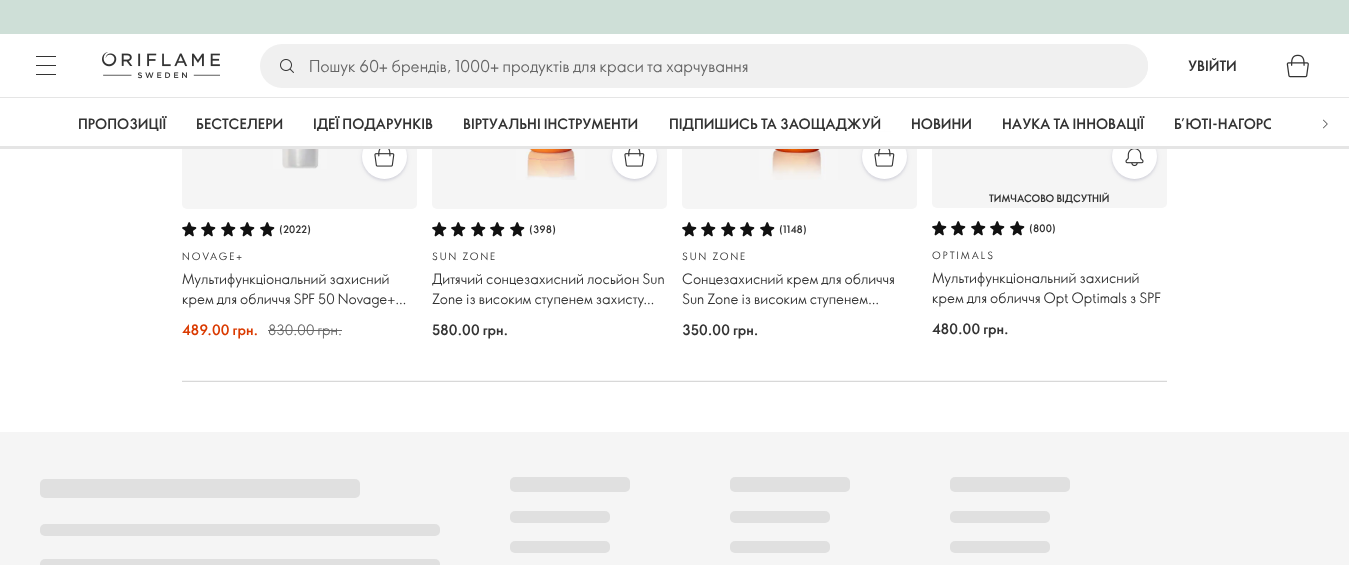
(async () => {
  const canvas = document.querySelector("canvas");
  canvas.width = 1349;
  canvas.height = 565;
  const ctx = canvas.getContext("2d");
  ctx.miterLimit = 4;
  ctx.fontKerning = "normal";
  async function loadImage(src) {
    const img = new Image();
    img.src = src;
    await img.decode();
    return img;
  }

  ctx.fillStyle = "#ffffff";
  ctx.fillRect(0, 0, 1349, 565);
  for (const [x, y, w, h, color] of [
    [0, 97, 1349, 1, "#e5e5e5"],
    [0, 0, 1349, 34, "#cedfd7"],
    [36, 56, 20, 1, "#333333"],
    [36, 65, 20, 1, "#333333"],
    [36, 74, 20, 1, "#333333"],
  ]) {
    ctx.fillStyle = color;
    ctx.fillRect(x, y, w, h);
  }
  ctx.drawImage(await loadImage("img/1.png"), 102, 52, 118, 27);
  ctx.fillStyle = "#f0f0f0";
  ctx.beginPath();
  ctx.roundRect(260, 44, 888, 44, 22);
  ctx.fill();
  ctx.drawImage(await loadImage("img/2.png"), 280, 59, 14, 14);
  ctx.save();
  ctx.beginPath();
  ctx.roundRect(260, 44, 888, 44, 22);
  ctx.clip();
  ctx.fillRect(307, 53, 841, 26);
  ctx.restore();
  ctx.drawImage(await loadImage("img/3.png"), 1286, 54, 23, 24);
  ctx.fillStyle = "#f5f5f5";
  ctx.fillRect(182, 149, 235, 40);
  ctx.fillStyle = "rgba(0, 0, 66, 0.08)";
  ctx.filter = "blur(2.5px)";
  ctx.beginPath();
  ctx.roundRect(362, 135, 45, 45, 22.5);
  ctx.fill();
  ctx.filter = "none";
  ctx.filter = "blur(1px)";
  ctx.beginPath();
  ctx.roundRect(362, 136, 45, 45, 22.5);
  ctx.fill();
  ctx.filter = "none";
  ctx.fillStyle = "#ffffff";
  ctx.beginPath();
  ctx.arc(384.5, 156.5, 22.5, 0, Math.PI * 2);
  ctx.fill();
  ctx.fillStyle = "#f5f5f5";
  ctx.fillRect(432, 149, 235, 40);
  ctx.fillStyle = "rgba(0, 0, 66, 0.08)";
  ctx.filter = "blur(2.5px)";
  ctx.beginPath();
  ctx.roundRect(612, 135, 45, 45, 22.5);
  ctx.fill();
  ctx.filter = "none";
  ctx.filter = "blur(1px)";
  ctx.beginPath();
  ctx.roundRect(612, 136, 45, 45, 22.5);
  ctx.fill();
  ctx.filter = "none";
  ctx.fillStyle = "#ffffff";
  ctx.beginPath();
  ctx.arc(634.5, 156.5, 22.5, 0, Math.PI * 2);
  ctx.fill();
  ctx.fillStyle = "#f5f5f5";
  ctx.fillRect(682, 149, 235, 40);
  ctx.fillStyle = "rgba(0, 0, 66, 0.08)";
  ctx.filter = "blur(2.5px)";
  ctx.beginPath();
  ctx.roundRect(862, 135, 45, 45, 22.5);
  ctx.fill();
  ctx.filter = "none";
  ctx.filter = "blur(1px)";
  ctx.beginPath();
  ctx.roundRect(862, 136, 45, 45, 22.5);
  ctx.fill();
  ctx.filter = "none";
  ctx.fillStyle = "#ffffff";
  ctx.beginPath();
  ctx.arc(884.5, 156.5, 22.5, 0, Math.PI * 2);
  ctx.fill();
  ctx.fillStyle = "#f5f5f5";
  ctx.fillRect(932, 149, 235, 40);
  ctx.fillStyle = "rgba(0, 0, 66, 0.08)";
  ctx.filter = "blur(2.5px)";
  ctx.beginPath();
  ctx.roundRect(1112, 135, 45, 45, 22.5);
  ctx.fill();
  ctx.filter = "none";
  ctx.filter = "blur(1px)";
  ctx.beginPath();
  ctx.roundRect(1112, 136, 45, 45, 22.5);
  ctx.fill();
  ctx.filter = "none";
  ctx.fillStyle = "#ffffff";
  ctx.beginPath();
  ctx.arc(1134.5, 156.5, 22.5, 0, Math.PI * 2);
  ctx.fill();
  ctx.fillRect(362, 132, 795, 14);
  ctx.drawImage(await loadImage("img/4.png"), 1323, 119, 5, 10);
  ctx.fillStyle = "#e5e5e5";
  ctx.fillRect(0, 146, 1349, 3);
  ctx.drawImage(await loadImage("img/5.png"), 273, 149, 54, 20);
  ctx.drawImage(await loadImage("img/6.png"), 374, 149, 21, 18);
  ctx.fillStyle = "#f5f5f5";
  ctx.beginPath();
  ctx.roundRect(182, 189, 235, 20, [0, 0, 5, 5]);
  ctx.fill();
  ctx.drawImage(await loadImage("img/7.png"), 182, 222, 15, 15);
  ctx.drawImage(await loadImage("img/7.png"), 201, 222, 15, 15);
  ctx.drawImage(await loadImage("img/7.png"), 221, 222, 15, 15);
  ctx.drawImage(await loadImage("img/7.png"), 240, 222, 15, 15);
  ctx.drawImage(await loadImage("img/7.png"), 260, 222, 15, 15);
  ctx.fillStyle = "#666666";
  ctx.fillRect(268, 330, 74, 1);
  ctx.drawImage(await loadImage("img/8.png"), 516, 149, 69, 31);
  ctx.drawImage(await loadImage("img/6.png"), 624, 149, 21, 18);
  ctx.fillStyle = "#f5f5f5";
  ctx.beginPath();
  ctx.roundRect(432, 189, 235, 20, [0, 0, 5, 5]);
  ctx.fill();
  ctx.drawImage(await loadImage("img/7.png"), 432, 222, 15, 15);
  ctx.drawImage(await loadImage("img/7.png"), 451, 222, 15, 15);
  ctx.drawImage(await loadImage("img/7.png"), 471, 222, 15, 15);
  ctx.drawImage(await loadImage("img/7.png"), 490, 222, 15, 15);
  ctx.drawImage(await loadImage("img/7.png"), 510, 222, 15, 15);
  ctx.drawImage(await loadImage("img/9.png"), 759, 149, 79, 31);
  ctx.drawImage(await loadImage("img/6.png"), 874, 149, 21, 18);
  ctx.beginPath();
  ctx.roundRect(682, 189, 235, 20, [0, 0, 5, 5]);
  ctx.fill();
  ctx.drawImage(await loadImage("img/7.png"), 682, 222, 15, 15);
  ctx.drawImage(await loadImage("img/7.png"), 701, 222, 15, 15);
  ctx.drawImage(await loadImage("img/7.png"), 721, 222, 15, 15);
  ctx.drawImage(await loadImage("img/7.png"), 740, 222, 15, 15);
  ctx.drawImage(await loadImage("img/7.png"), 760, 222, 15, 15);
  ctx.drawImage(await loadImage("img/10.png"), 1125, 149, 19, 18);
  ctx.beginPath();
  ctx.roundRect(932, 189, 235, 19, [0, 0, 5, 5]);
  ctx.fill();
  ctx.drawImage(await loadImage("img/7.png"), 932, 221, 15, 15);
  ctx.drawImage(await loadImage("img/7.png"), 951, 221, 15, 15);
  ctx.drawImage(await loadImage("img/7.png"), 971, 221, 15, 15);
  ctx.drawImage(await loadImage("img/7.png"), 990, 221, 15, 15);
  ctx.drawImage(await loadImage("img/7.png"), 1010, 221, 15, 15);
  for (const [x, y, w, h, color] of [
    [182, 380, 985, 1, "#f5f5f5"],
    [182, 381, 985, 1, "#d8d8d8"],
    [0, 432, 1349, 133, "#f5f5f5"],
  ]) {
    ctx.fillStyle = color;
    ctx.fillRect(x, y, w, h);
  }
  ctx.fillStyle = "#e0e0e0";
  ctx.beginPath();
  ctx.roundRect(40, 479, 320, 19, 5);
  ctx.fill();
  ctx.beginPath();
  ctx.roundRect(40, 524, 400, 12, 5);
  ctx.fill();
  ctx.beginPath();
  ctx.roundRect(40, 559, 400, 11, 5);
  ctx.fill();
  ctx.beginPath();
  ctx.roundRect(510, 477, 120, 15, 5);
  ctx.fill();
  ctx.beginPath();
  ctx.roundRect(510, 511, 100, 12, 5);
  ctx.fill();
  ctx.beginPath();
  ctx.roundRect(510, 541, 100, 12, 5);
  ctx.fill();
  ctx.beginPath();
  ctx.roundRect(730, 477, 120, 15, 5);
  ctx.fill();
  ctx.beginPath();
  ctx.roundRect(730, 511, 100, 12, 5);
  ctx.fill();
  ctx.beginPath();
  ctx.roundRect(730, 541, 100, 12, 5);
  ctx.fill();
  ctx.beginPath();
  ctx.roundRect(950, 477, 120, 15, 5);
  ctx.fill();
  ctx.beginPath();
  ctx.roundRect(950, 511, 100, 12, 5);
  ctx.fill();
  ctx.beginPath();
  ctx.roundRect(950, 541, 100, 12, 5);
  ctx.fill();
  ctx.font = "16px 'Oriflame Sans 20'";
  ctx.fillStyle = "#666666";
  ctx.fillText("Пошук 60+ брендів, 1000+ продуктів для краси та харчування", 309, 72);
  ctx.font = "bold 14px 'Oriflame Sans 20'";
  ctx.fillStyle = "#333333";
  for (const [text, x, y] of [
    ["УВІЙТИ", 1188, 71],
    ["ПРОПОЗИЦІЇ", 78, 129],
    ["БЕСТСЕЛЕРИ", 196, 129],
    ["ІДЕЇ ПОДАРУНКІВ", 313, 129],
    ["ВІРТУАЛЬНІ ІНСТРУМЕНТИ", 463, 129],
    ["ПІДПИШИСЬ ТА ЗАОЩАДЖУЙ", 669, 129],
    ["НОВИНИ", 911, 129],
    ["НАУКА ТА ІННОВАЦІЇ", 1002, 129],
  ]) {
    ctx.fillText(text, x, y);
  }
  ctx.save();
  ctx.beginPath();
  ctx.rect(1174, 98, 97, 51);
  ctx.clip();
  ctx.fillText("Б’ЮТІ-НАГОРО", 1174, 129);
  ctx.restore();
  ctx.font = "bold 10px 'Oriflame Sans 20'";
  ctx.fillText("(2022)", 279, 233);
  ctx.letterSpacing = "2px";
  ctx.font = "10px 'Oriflame Sans 20'";
  ctx.fillText("NOVAGE+", 182, 260);
  ctx.letterSpacing = "0px";
  ctx.font = "14px 'Oriflame Sans 20'";
  ctx.fillText("Мультифункціональний захисний", 182, 284);
  ctx.fillText("крем для обличчя SPF 50 Novage+…", 182, 304);
  ctx.font = "bold 14px 'Oriflame Sans 20'";
  ctx.fillStyle = "#da3a00";
  ctx.fillText("489.00 грн.", 182, 335);
  ctx.font = "14px 'Oriflame Sans 20'";
  ctx.fillStyle = "#666666";
  ctx.fillText("830.00 грн.", 268, 335);
  ctx.font = "bold 10px 'Oriflame Sans 20'";
  ctx.fillStyle = "#333333";
  ctx.fillText("(398)", 529, 233);
  ctx.letterSpacing = "2px";
  ctx.font = "10px 'Oriflame Sans 20'";
  ctx.fillText("SUN ZONE", 432, 260);
  ctx.letterSpacing = "0px";
  ctx.font = "14px 'Oriflame Sans 20'";
  ctx.fillText("Дитячий сонцезахисний лосьйон Sun", 432, 284);
  ctx.fillText("Zone із високим ступенем захисту…", 432, 304);
  ctx.font = "bold 14px 'Oriflame Sans 20'";
  ctx.fillText("580.00 грн.", 432, 335);
  ctx.font = "bold 10px 'Oriflame Sans 20'";
  ctx.fillText("(1148)", 779, 233);
  ctx.letterSpacing = "2px";
  ctx.font = "10px 'Oriflame Sans 20'";
  ctx.fillText("SUN ZONE", 682, 260);
  ctx.letterSpacing = "0px";
  ctx.font = "14px 'Oriflame Sans 20'";
  ctx.fillText("Сонцезахисний крем для обличчя", 682, 284);
  ctx.fillText("Sun Zone із високим ступенем…", 682, 304);
  ctx.font = "bold 14px 'Oriflame Sans 20'";
  ctx.fillText("350.00 грн.", 682, 335);
  ctx.font = "bold 10px 'Oriflame Sans 20'";
  ctx.fillText("ТИМЧАСОВО ВІДСУТНІЙ", 989, 202);
  ctx.fillText("(800)", 1029, 232);
  ctx.letterSpacing = "2px";
  ctx.font = "10px 'Oriflame Sans 20'";
  ctx.fillText("OPTIMALS", 932, 259);
  ctx.letterSpacing = "0px";
  ctx.font = "14px 'Oriflame Sans 20'";
  ctx.fillText("Мультифункціональний захисний", 932, 283);
  ctx.fillText("крем для обличчя Opt Optimals з SPF", 932, 303);
  ctx.font = "bold 14px 'Oriflame Sans 20'";
  ctx.fillText("480.00 грн.", 932, 334);
})();
